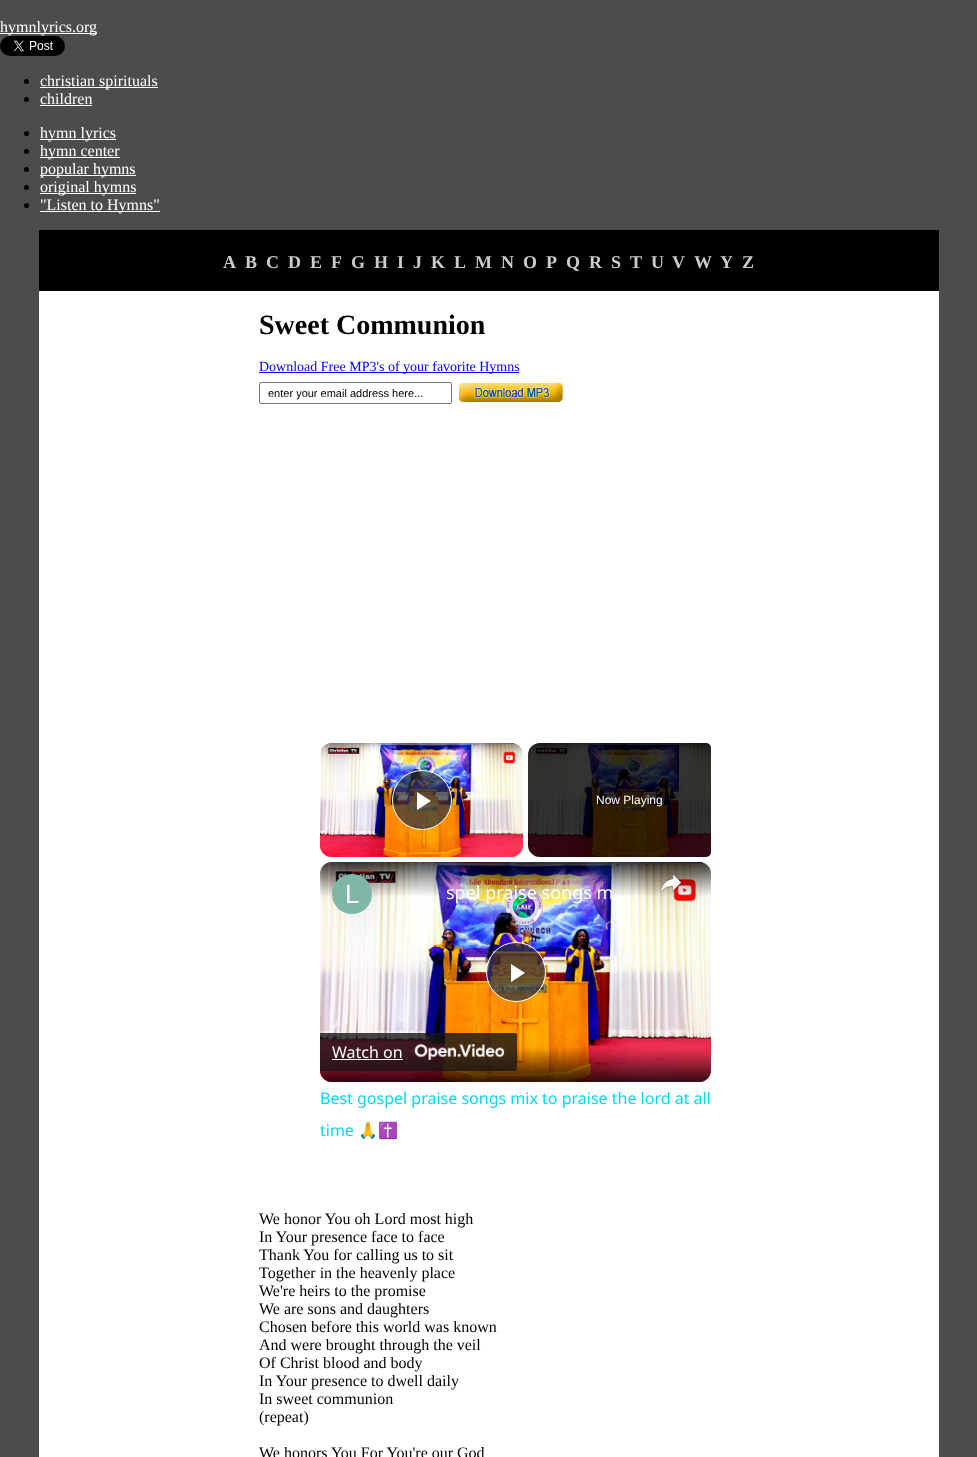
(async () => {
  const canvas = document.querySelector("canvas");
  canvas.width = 977;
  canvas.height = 1457;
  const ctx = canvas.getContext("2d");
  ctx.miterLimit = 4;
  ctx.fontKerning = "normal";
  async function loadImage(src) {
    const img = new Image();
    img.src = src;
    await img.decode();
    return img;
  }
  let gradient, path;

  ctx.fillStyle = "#4c4c4c";
  ctx.fillRect(0, 0, 977, 1457);
  ctx.fillStyle = "#ffffff";
  ctx.fillRect(0, 33, 97, 1);
  ctx.drawImage(await loadImage("img/1.png"), 0, 36, 65, 20);
  ctx.fillStyle = "#000000";
  ctx.beginPath();
  ctx.arc(26.5, 81.5, 2.5, 0, Math.PI * 2);
  ctx.fill();
  ctx.fillStyle = "#ffffff";
  ctx.fillRect(40, 87, 118, 1);
  ctx.fillStyle = "#000000";
  ctx.beginPath();
  ctx.arc(26.5, 99.5, 2.5, 0, Math.PI * 2);
  ctx.fill();
  ctx.fillStyle = "#ffffff";
  ctx.fillRect(40, 105, 52, 1);
  ctx.fillStyle = "#000000";
  ctx.beginPath();
  ctx.arc(26.5, 133.5, 2.5, 0, Math.PI * 2);
  ctx.fill();
  ctx.fillStyle = "#ffffff";
  ctx.fillRect(40, 139, 76, 1);
  ctx.fillStyle = "#000000";
  ctx.beginPath();
  ctx.arc(26.5, 151.5, 2.5, 0, Math.PI * 2);
  ctx.fill();
  ctx.fillStyle = "#ffffff";
  ctx.fillRect(40, 157, 80, 1);
  ctx.fillStyle = "#000000";
  ctx.beginPath();
  ctx.arc(26.5, 169.5, 2.5, 0, Math.PI * 2);
  ctx.fill();
  ctx.fillStyle = "#ffffff";
  ctx.fillRect(40, 175, 96, 1);
  ctx.fillStyle = "#000000";
  ctx.beginPath();
  ctx.arc(26.5, 187.5, 2.5, 0, Math.PI * 2);
  ctx.fill();
  ctx.fillStyle = "#ffffff";
  ctx.fillRect(40, 193, 96, 1);
  ctx.fillStyle = "#000000";
  ctx.beginPath();
  ctx.arc(26.5, 205.5, 2.5, 0, Math.PI * 2);
  ctx.fill();
  for (const [x, y, w, h, color] of [
    [40, 211, 120, 1, "#ffffff"],
    [39, 230, 900, 61, "#000000"],
    [39, 291, 746, 22, "#ffffff"],
    [785, 291, 154, 1166, "#ffffff"],
    [39, 313, 208, 1144, "#ffffff"],
    [247, 313, 538, 1144, "#ffffff"],
    [259, 372, 260, 1, "#0000ff"],
  ]) {
    ctx.fillStyle = color;
    ctx.fillRect(x, y, w, h);
  }
  ctx.beginPath();
  ctx.roundRect(259.5, 382.5, 192, 21, 1.5);
  ctx.strokeStyle = "#767676";
  ctx.stroke();
  ctx.drawImage(await loadImage("img/2.png"), 459, 383, 104, 19);
  ctx.drawImage(await loadImage("img/3.png"), 320, 743, 203, 114);
  ctx.drawImage(await loadImage("img/4.png"), 320, 743, 203, 114);
  ctx.fillStyle = "rgba(43, 51, 63, 0.7)";
  ctx.beginPath();
  ctx.arc(422, 800, 29.5, 0, Math.PI * 2);
  ctx.fill();
  ctx.strokeStyle = "#ffffff";
  ctx.stroke();
  ctx.fillStyle = "#ffffff";
  path = new Path2D("M417 792V810L431 801Z");
  ctx.fill(path);
  ctx.fillStyle = "#000000";
  ctx.beginPath();
  ctx.roundRect(528, 743, 183, 114, [12, 5, 5, 12]);
  ctx.fill();
  ctx.drawImage(await loadImage("img/5.png"), 528, 743, 183, 114);
  ctx.drawImage(await loadImage("img/6.png"), 320, 862, 391, 220);
  ctx.drawImage(await loadImage("img/7.png"), 320, 862, 391, 220);
  ctx.fillStyle = "rgba(43, 51, 63, 0.7)";
  ctx.beginPath();
  ctx.arc(516, 972, 29.5, 0, Math.PI * 2);
  ctx.fill();
  ctx.stroke();
  ctx.fillStyle = "#ffffff";
  path = new Path2D("M511 964V982L525 973Z");
  ctx.fill(path);
  gradient = ctx.createLinearGradient(516, 862, 516, 1082);
  gradient.addColorStop(0, "rgba(0, 0, 0, 0.6)");
  gradient.addColorStop(0.16, "rgba(0, 0, 0, 0)");
  gradient.addColorStop(0.84, "rgba(0, 0, 0, 0)");
  gradient.addColorStop(1, "rgba(0, 0, 0, 0.8)");
  ctx.fillStyle = gradient;
  ctx.beginPath();
  ctx.roundRect(320, 862, 391, 220, 12);
  ctx.fill();
  ctx.drawImage(await loadImage("img/8.png"), 332, 874, 40, 40);
  ctx.drawImage(await loadImage("img/9.png"), 660, 873, 23, 20);
  ctx.fillStyle = "rgba(23, 23, 23, 0.8)";
  ctx.beginPath();
  ctx.roundRect(320, 1033, 197, 38, [0, 2, 2, 0]);
  ctx.fill();
  ctx.fillStyle = "#ffffff";
  ctx.fillRect(332, 1059, 71, 1);
  ctx.drawImage(await loadImage("img/10.png"), 414, 1044, 91, 16);
  ctx.font = "16px Liberation Serif";
  for (const [text, x, y] of [
    ["hymnlyrics.org", 0, 32],
    ["christian spirituals", 40, 86],
    ["children", 40, 104],
    ["hymn lyrics", 40, 138],
    ["hymn center", 40, 156],
    ["popular hymns", 40, 174],
    ["original hymns", 40, 192],
    ["\"Listen to Hymns\"", 40, 210],
  ]) {
    ctx.fillText(text, x, y);
  }
  ctx.font = "bold 18px Liberation Serif";
  ctx.fillStyle = "#cccccc";
  for (const [text, x, y] of [
    ["A", 223, 268],
    ["B", 245, 268],
    ["C", 266, 268],
    ["D", 288, 268],
    ["E", 310, 268],
    ["F", 331, 268],
    ["G", 351, 268],
    ["H", 374, 268],
    ["I", 397, 268],
    ["J", 413, 268],
    ["K", 431, 268],
    ["L", 454, 268],
    ["M", 475, 268],
    ["N", 501, 268],
    ["O", 523, 268],
    ["P", 546, 268],
    ["Q", 566, 268],
    ["R", 589, 268],
    ["S", 611, 268],
    ["T", 630, 268],
    ["U", 651, 268],
    ["V", 672, 268],
    ["W", 694, 268],
    ["Y", 720, 268],
    ["Z", 742, 268],
  ]) {
    ctx.fillText(text, x, y);
  }
  ctx.font = "bold 28px Liberation Serif";
  ctx.fillStyle = "#000000";
  ctx.fillText("Sweet Communion", 259, 334);
  ctx.font = "14px Liberation Serif";
  ctx.fillStyle = "#0000ff";
  ctx.fillText("Download Free MP3's of your favorite Hymns", 259, 371);
  ctx.font = "11px Liberation Sans";
  ctx.fillStyle = "#000000";
  ctx.fillText("enter your email address here...", 268, 397);
  ctx.font = "12px Liberation Sans";
  ctx.fillStyle = "#ffffff";
  ctx.fillText("Now Playing", 596, 804);
  ctx.font = "18px Noto Sans";
  ctx.fillText("spel praise songs m", 446, 899);
  ctx.font = "16px Noto Sans";
  ctx.fillText("Watch on", 332, 1058);
  ctx.fillStyle = "#03d8f3";
  ctx.fillText("Best gospel praise songs mix to praise the lord at all", 320, 1104);
  ctx.fillText("time", 320, 1136);
  ctx.font = "16px Noto Color Emoji";
  ctx.fillText("🙏✝️", 358, 1136);
  ctx.font = "16px Liberation Serif";
  ctx.fillStyle = "#000000";
  for (const [text, x, y] of [
    ["We honor You oh Lord most high", 259, 1224],
    ["In Your presence face to face", 259, 1242],
    ["Thank You for calling us to sit", 259, 1260],
    ["Together in the heavenly place", 259, 1278],
    ["We're heirs to the promise", 259, 1296],
    ["We are sons and daughters", 259, 1314],
    ["Chosen before this world was known", 259, 1332],
    ["And were brought through the veil", 259, 1350],
    ["Of Christ blood and body", 259, 1368],
    ["In Your presence to dwell daily", 259, 1386],
    ["In sweet communion", 259, 1404],
    ["(repeat)", 259, 1422],
    ["We honors You For You're our God", 259, 1458],
  ]) {
    ctx.fillText(text, x, y);
  }
})();
